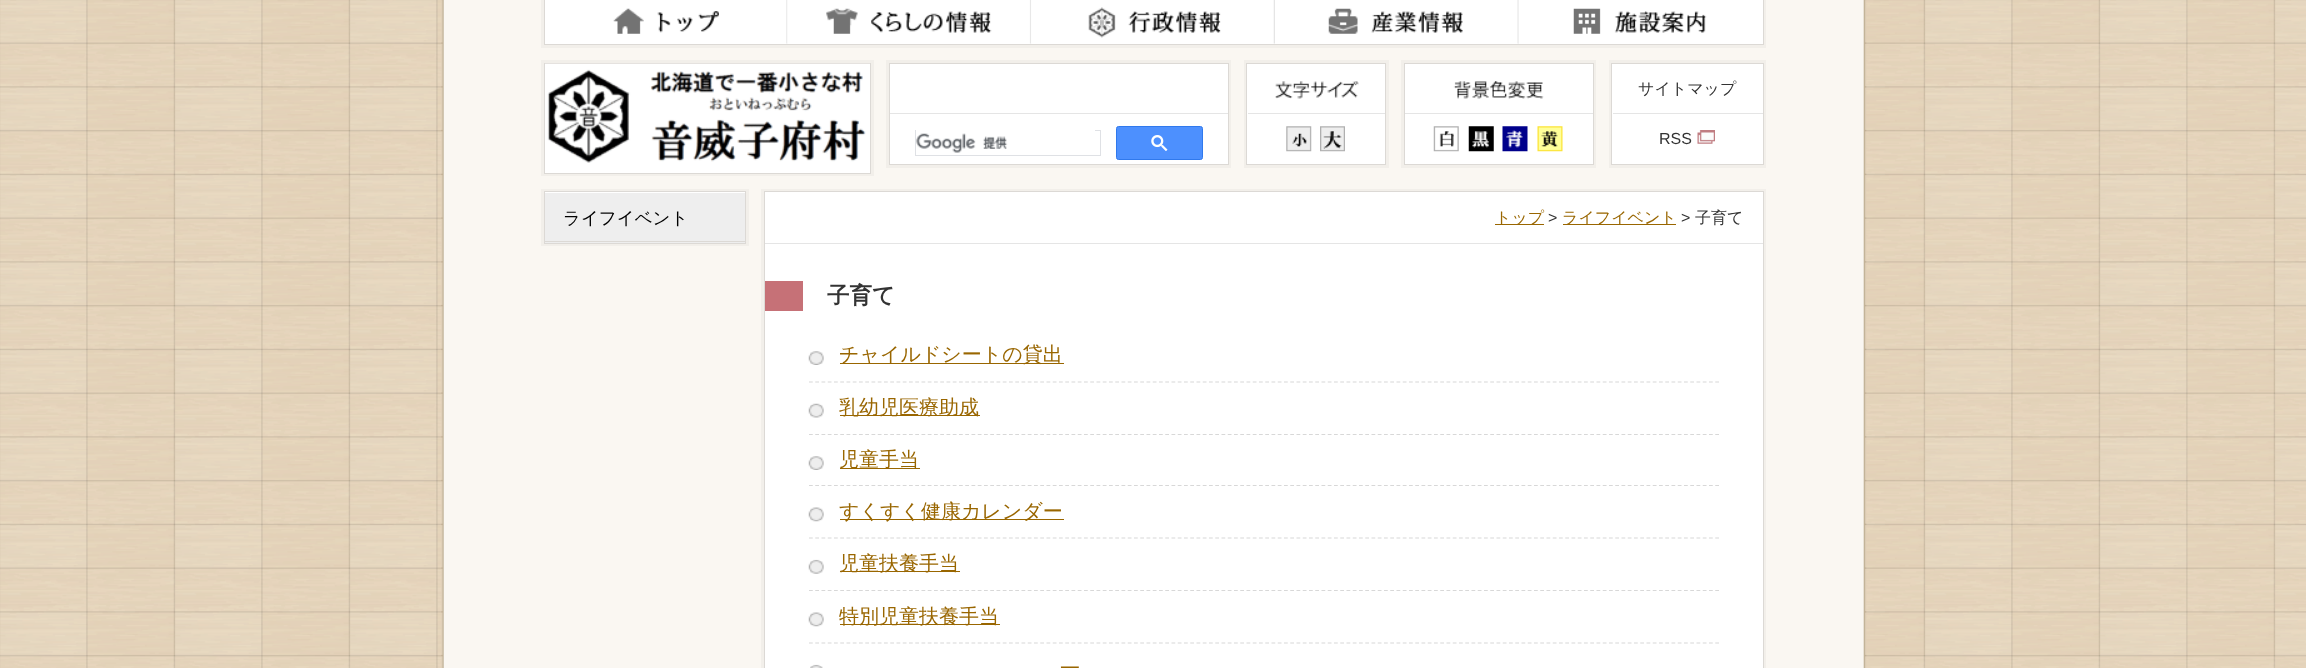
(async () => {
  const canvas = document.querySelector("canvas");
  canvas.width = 2306;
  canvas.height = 668;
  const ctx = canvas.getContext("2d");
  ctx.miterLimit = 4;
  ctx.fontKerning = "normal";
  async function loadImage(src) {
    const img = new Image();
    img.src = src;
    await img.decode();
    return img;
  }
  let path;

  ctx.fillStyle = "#ffffff";
  ctx.fillRect(0, 0, 2306, 668);
  ctx.drawImage(await loadImage("img/1.png"), 0, 0, 2306, 668);
  ctx.drawImage(await loadImage("img/2.png"), 441, 0, 1426, 668);
  for (const [x, y, w, h, color] of [
    [545, 0, 1218, 44, "#ffffff"],
    [1764, 0, 2, 48, "#f2efea"],
    [541, 45, 1225, 3, "#f2efea"],
    [541, 0, 3, 48, "#f2efea"],
    [1763, 0, 1, 45, "#dcd9d5"],
    [544, 44, 1220, 1, "#dcd9d5"],
    [544, 0, 1, 45, "#dcd9d5"],
  ]) {
    ctx.fillStyle = color;
    ctx.fillRect(x, y, w, h);
  }
  ctx.drawImage(await loadImage("img/3.png"), 613, 0, 175, 44);
  ctx.drawImage(await loadImage("img/4.png"), 787, 0, 245, 44);
  ctx.drawImage(await loadImage("img/5.png"), 1031, 0, 244, 44);
  ctx.drawImage(await loadImage("img/6.png"), 1328, 0, 191, 44);
  ctx.drawImage(await loadImage("img/7.png"), 1518, 0, 189, 43);
  ctx.fillStyle = "#ffffff";
  ctx.fillRect(545, 163, 325, 10);
  ctx.strokeStyle = "#f2efea";
  ctx.lineWidth = 3;
  ctx.strokeRect(542.5, 61.5, 330, 113);
  ctx.strokeStyle = "#dcd9d5";
  ctx.lineWidth = 1;
  ctx.strokeRect(544.5, 63.5, 326, 110);
  ctx.drawImage(await loadImage("img/8.png"), 545, 63, 325, 100);
  ctx.fillRect(890, 64, 338, 100);
  ctx.strokeStyle = "#f2efea";
  ctx.lineWidth = 3;
  ctx.strokeRect(887.5, 61.5, 342, 105);
  ctx.strokeStyle = "#dcd9d5";
  ctx.lineWidth = 1;
  ctx.strokeRect(889.5, 63.5, 339, 101);
  ctx.fillStyle = "#e5e5e5";
  ctx.fillRect(890, 113, 338, 1);
  ctx.strokeStyle = "#dfe1e5";
  ctx.strokeRect(915.5, 130.5, 185, 25);
  ctx.fillStyle = "#ffffff";
  ctx.fillRect(916, 130, 179, 1);
  ctx.drawImage(await loadImage("img/9.png"), 916, 133, 92, 20);
  ctx.fillStyle = "#4d90fe";
  ctx.beginPath();
  ctx.roundRect(1116.5, 126.5, 86, 33, 2);
  ctx.fill();
  ctx.strokeStyle = "#3079ed";
  ctx.stroke();
  ctx.drawImage(await loadImage("img/10.png"), 1151, 135, 17, 16);
  ctx.fillStyle = "#ffffff";
  ctx.fillRect(1247, 64, 138, 100);
  ctx.strokeStyle = "#f2efea";
  ctx.lineWidth = 3;
  ctx.strokeRect(1245.5, 61.5, 142, 105);
  ctx.strokeStyle = "#dcd9d5";
  ctx.lineWidth = 1;
  ctx.strokeRect(1246.5, 63.5, 139, 101);
  ctx.fillStyle = "#e5e5e5";
  ctx.fillRect(1248, 113, 137, 1);
  ctx.drawImage(await loadImage("img/11.png"), 1275, 81, 84, 18);
  ctx.drawImage(await loadImage("img/12.png"), 1286, 126, 26, 26);
  ctx.drawImage(await loadImage("img/13.png"), 1320, 126, 25, 26);
  ctx.fillStyle = "#ffffff";
  ctx.fillRect(1405, 64, 188, 100);
  ctx.strokeStyle = "#f2efea";
  ctx.lineWidth = 3;
  ctx.strokeRect(1402.5, 61.5, 192, 105);
  ctx.strokeStyle = "#dcd9d5";
  ctx.lineWidth = 1;
  ctx.strokeRect(1404.5, 63.5, 189, 101);
  ctx.fillStyle = "#e5e5e5";
  ctx.fillRect(1405, 113, 188, 1);
  ctx.drawImage(await loadImage("img/14.png"), 1453, 81, 91, 18);
  ctx.drawImage(await loadImage("img/15.png"), 1433, 126, 26, 26);
  ctx.drawImage(await loadImage("img/16.png"), 1468, 126, 26, 26);
  ctx.drawImage(await loadImage("img/17.png"), 1502, 126, 26, 26);
  ctx.drawImage(await loadImage("img/18.png"), 1537, 126, 26, 26);
  ctx.fillStyle = "#ffffff";
  ctx.fillRect(1612, 64, 151, 100);
  ctx.strokeStyle = "#f2efea";
  ctx.lineWidth = 3;
  ctx.strokeRect(1610.5, 61.5, 154, 105);
  ctx.strokeStyle = "#dcd9d5";
  ctx.lineWidth = 1;
  ctx.strokeRect(1611.5, 63.5, 152, 101);
  ctx.fillStyle = "#e5e5e5";
  ctx.fillRect(1613, 113, 150, 1);
  ctx.drawImage(await loadImage("img/19.png"), 1697, 130, 18, 14);
  ctx.fillStyle = "#ffffff";
  ctx.fillRect(545, 192, 200, 1);
  ctx.strokeStyle = "#f2efea";
  ctx.lineWidth = 3;
  ctx.strokeRect(542.5, 190.5, 205, 54);
  ctx.strokeStyle = "#dcd9d5";
  ctx.lineWidth = 1;
  ctx.strokeRect(544.5, 191.5, 201, 52);
  for (const [x, y, w, h, color] of [
    [545, 193, 200, 50, "#eeeeee"],
    [545, 241, 200, 1, "#dcd9d5"],
    [765, 192, 998, 476, "#ffffff"],
  ]) {
    ctx.fillStyle = color;
    ctx.fillRect(x, y, w, h);
  }
  ctx.strokeStyle = "#f2efea";
  ctx.lineWidth = 3;
  ctx.strokeRect(762.5, 190.5, 1002, 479);
  ctx.strokeStyle = "#dcd9d5";
  ctx.lineWidth = 1;
  ctx.strokeRect(764.5, 191.5, 999, 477);
  for (const [x, y, w, h, color] of [
    [765, 243, 998, 1, "#e5e5e5"],
    [1495, 224, 49, 1, "#996600"],
    [1563, 224, 113, 1, "#996600"],
    [765, 281, 38, 30, "#c67177"],
  ]) {
    ctx.fillStyle = color;
    ctx.fillRect(x, y, w, h);
  }
  ctx.drawImage(await loadImage("img/20.png"), 808, 351, 16, 14);
  path = new Path2D("M809 382H1719");
  ctx.strokeStyle = "#d8d8d8";
  ctx.lineWidth = 1.2;
  ctx.setLineDash([3.75, 2.5]);
  ctx.stroke(path);
  ctx.fillStyle = "#996600";
  ctx.fillRect(840, 363, 224, 1);
  ctx.drawImage(await loadImage("img/21.png"), 808, 403, 16, 15);
  path = new Path2D("M809 434.5H1719");
  ctx.stroke(path);
  ctx.fillRect(840, 415, 140, 1);
  ctx.drawImage(await loadImage("img/20.png"), 808, 456, 16, 14);
  path = new Path2D("M809 485.5H1719");
  ctx.stroke(path);
  ctx.fillRect(840, 468, 80, 1);
  ctx.drawImage(await loadImage("img/22.png"), 808, 507, 16, 15);
  path = new Path2D("M809 538H1719");
  ctx.stroke(path);
  ctx.fillRect(840, 519, 224, 1);
  ctx.drawImage(await loadImage("img/23.png"), 808, 559, 16, 15);
  path = new Path2D("M809 590.5H1719");
  ctx.stroke(path);
  ctx.fillRect(840, 571, 120, 1);
  ctx.drawImage(await loadImage("img/22.png"), 808, 612, 16, 15);
  path = new Path2D("M809 643H1719");
  ctx.stroke(path);
  ctx.fillRect(840, 624, 160, 1);
  ctx.drawImage(await loadImage("img/24.png"), 810, 664, 13, 4);
  ctx.font = "500 16px WenQuanYi Zen Hei";
  ctx.fillStyle = "#333333";
  ctx.fillText("サイトマップ", 1638, 94);
  ctx.font = "16px Liberation Sans";
  ctx.fillText("RSS", 1659, 144);
  ctx.font = "500 17.5px WenQuanYi Zen Hei";
  ctx.fillStyle = "#000000";
  ctx.fillText("ライフイベント", 563, 224);
  ctx.font = "500 16px WenQuanYi Zen Hei";
  ctx.fillStyle = "#996600";
  ctx.fillText("トップ", 1495, 223);
  ctx.font = "16px Liberation Sans";
  ctx.fillStyle = "#333333";
  ctx.fillText(">", 1548, 223);
  ctx.font = "500 16px WenQuanYi Zen Hei";
  ctx.fillStyle = "#996600";
  ctx.fillText("ライフイベント", 1562, 223);
  ctx.font = "16px Liberation Sans";
  ctx.fillStyle = "#333333";
  ctx.fillText(">", 1681, 223);
  ctx.font = "500 16px WenQuanYi Zen Hei";
  ctx.fillText("子育て", 1695, 223);
  ctx.font = "bold 22.5px WenQuanYi Zen Hei";
  ctx.fillText("子育て", 827, 303);
  ctx.font = "500 20px WenQuanYi Zen Hei";
  ctx.fillStyle = "#996600";
  for (const [text, x, y] of [
    ["チャイルドシートの貸出", 839, 361],
    ["乳幼児医療助成", 839, 414],
    ["児童手当", 839, 466],
    ["すくすく健康カレンダー", 839, 518],
    ["児童扶養手当", 839, 570],
    ["特別児童扶養手当", 839, 623],
    ["一", 1060, 675],
  ]) {
    ctx.fillText(text, x, y);
  }
})();
